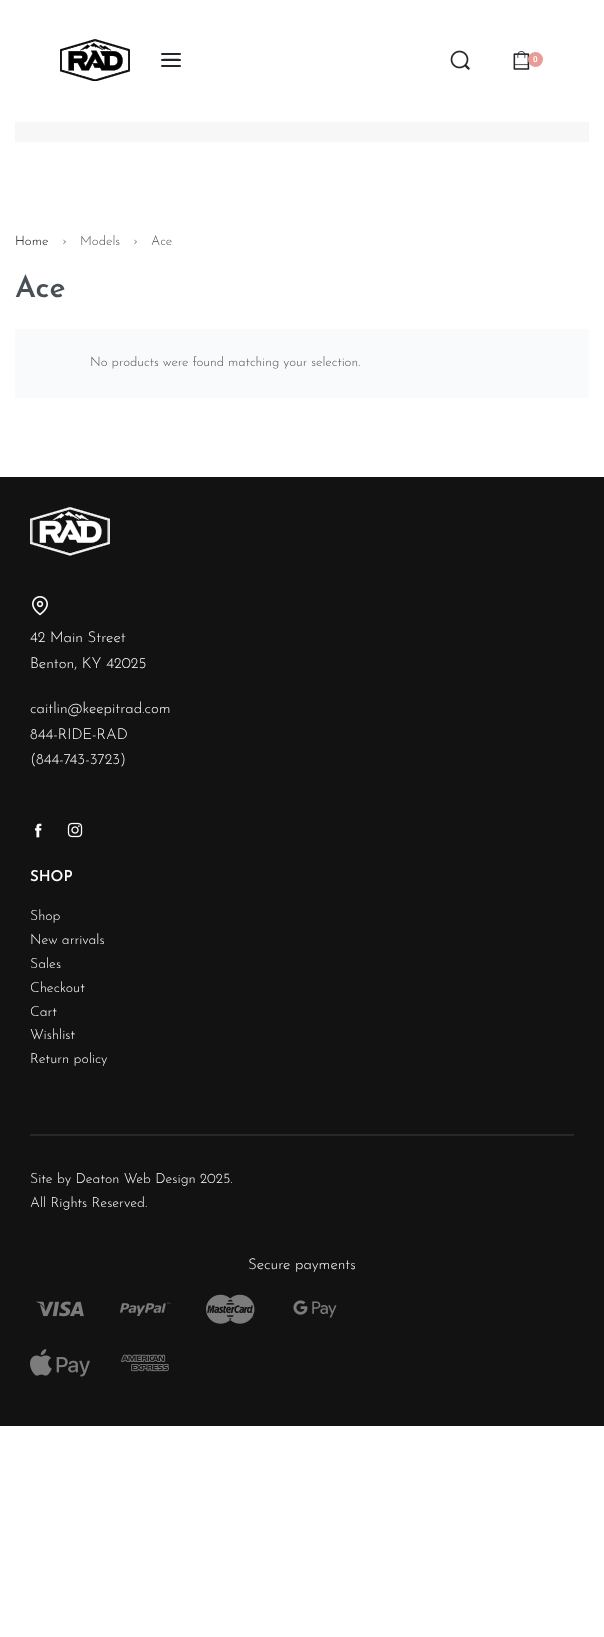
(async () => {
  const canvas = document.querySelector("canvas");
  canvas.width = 604;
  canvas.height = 1637;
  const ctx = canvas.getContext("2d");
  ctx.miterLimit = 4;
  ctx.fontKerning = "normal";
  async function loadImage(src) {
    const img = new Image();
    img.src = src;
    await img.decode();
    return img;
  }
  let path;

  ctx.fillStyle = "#ffffff";
  ctx.fillRect(0, 0, 604, 1637);
  ctx.drawImage(await loadImage("img/1.png"), 60, 39, 70, 42);
  ctx.fillStyle = "#22262a";
  ctx.beginPath();
  ctx.roundRect(161, 53, 20, 2, 1);
  ctx.fill();
  ctx.beginPath();
  ctx.roundRect(161, 59, 20, 2, 1);
  ctx.fill();
  ctx.beginPath();
  ctx.roundRect(161, 65, 20, 2, 1);
  ctx.fill();
  path = new Path2D("M163.5 59.5H179Z");
  ctx.strokeStyle = "#22262a";
  ctx.lineWidth = 1.7;
  ctx.lineCap = "square";
  ctx.stroke(path);
  ctx.drawImage(await loadImage("img/2.png"), 450, 50, 20, 20);
  ctx.drawImage(await loadImage("img/3.png"), 513, 51, 17, 19);
  ctx.fillStyle = "#e79c96";
  ctx.beginPath();
  ctx.arc(535.5, 59.5, 7.5, 0, Math.PI * 2);
  ctx.fill();
  ctx.fillStyle = "#f7f7f7";
  ctx.fillRect(15, 122, 574, 20);
  ctx.fillStyle = "#f9fafb";
  ctx.beginPath();
  ctx.roundRect(15, 329, 574, 69, 2);
  ctx.fill();
  ctx.fillStyle = "#121212";
  ctx.fillRect(0, 477, 604, 949);
  ctx.drawImage(await loadImage("img/4.png"), 30, 507, 80, 49);
  ctx.drawImage(await loadImage("img/5.png"), 32, 596, 16, 20);
  ctx.drawImage(await loadImage("img/6.png"), 35, 823, 7, 15);
  ctx.drawImage(await loadImage("img/7.png"), 67, 822, 16, 16);
  ctx.fillStyle = "#282828";
  ctx.fillRect(30, 1134, 544, 2);
  ctx.drawImage(await loadImage("img/8.png"), 36, 1301, 48, 16);
  ctx.drawImage(await loadImage("img/9.png"), 120, 1302, 51, 14);
  ctx.drawImage(await loadImage("img/10.png"), 206, 1294, 49, 30);
  ctx.drawImage(await loadImage("img/11.png"), 293, 1300, 44, 18);
  ctx.drawImage(await loadImage("img/12.png"), 30, 1349, 60, 28);
  ctx.drawImage(await loadImage("img/13.png"), 121, 1354, 48, 18);
  ctx.font = "600 8px Roboto";
  ctx.fillStyle = "#ffffff";
  ctx.fillText("0", 533, 62);
  ctx.font = "300 13.1px Josefin Sans";
  ctx.fillStyle = "#000000";
  ctx.fillText("Home", 15, 245);
  ctx.fillStyle = "#484f56";
  for (const [text, x, y] of [
    ["›", 62, 245],
    ["Models", 80, 245],
    ["›", 133, 245],
    ["Ace", 151, 245],
  ]) {
    ctx.fillText(text, x, y);
  }
  ctx.font = "600 30px Josefin Sans";
  ctx.fillText("Ace", 15, 297);
  ctx.font = "300 13.1px Josefin Sans";
  ctx.fillText("No products were found matching your selection.", 90, 366);
  ctx.font = "300 15px Josefin Sans";
  ctx.fillStyle = "#ffffff";
  for (const [text, x, y] of [
    ["42 Main Street", 30, 642],
    ["Benton, KY 42025", 30, 668],
    ["caitlin@keepitrad.com", 30, 713],
    ["844-RIDE-RAD", 30, 739],
    ["(844-743-3723)", 30, 764],
  ]) {
    ctx.fillText(text, x, y);
  }
  ctx.font = "600 15px Josefin Sans";
  ctx.fillText("SHOP", 30, 881);
  ctx.font = "300 14px Josefin Sans";
  for (const [text, x, y] of [
    ["Shop", 30, 920],
    ["New arrivals", 30, 944],
    ["Sales", 30, 968],
    ["Checkout", 30, 992],
    ["Cart", 30, 1016],
    ["Wishlist", 30, 1039],
    ["Return policy", 30, 1063],
    ["Site by Deaton Web Design 2025.", 30, 1183],
    ["All Rights Reserved.", 30, 1207],
  ]) {
    ctx.fillText(text, x, y);
  }
  ctx.font = "300 15px Josefin Sans";
  ctx.fillText("Secure payments", 248, 1269);
})();
